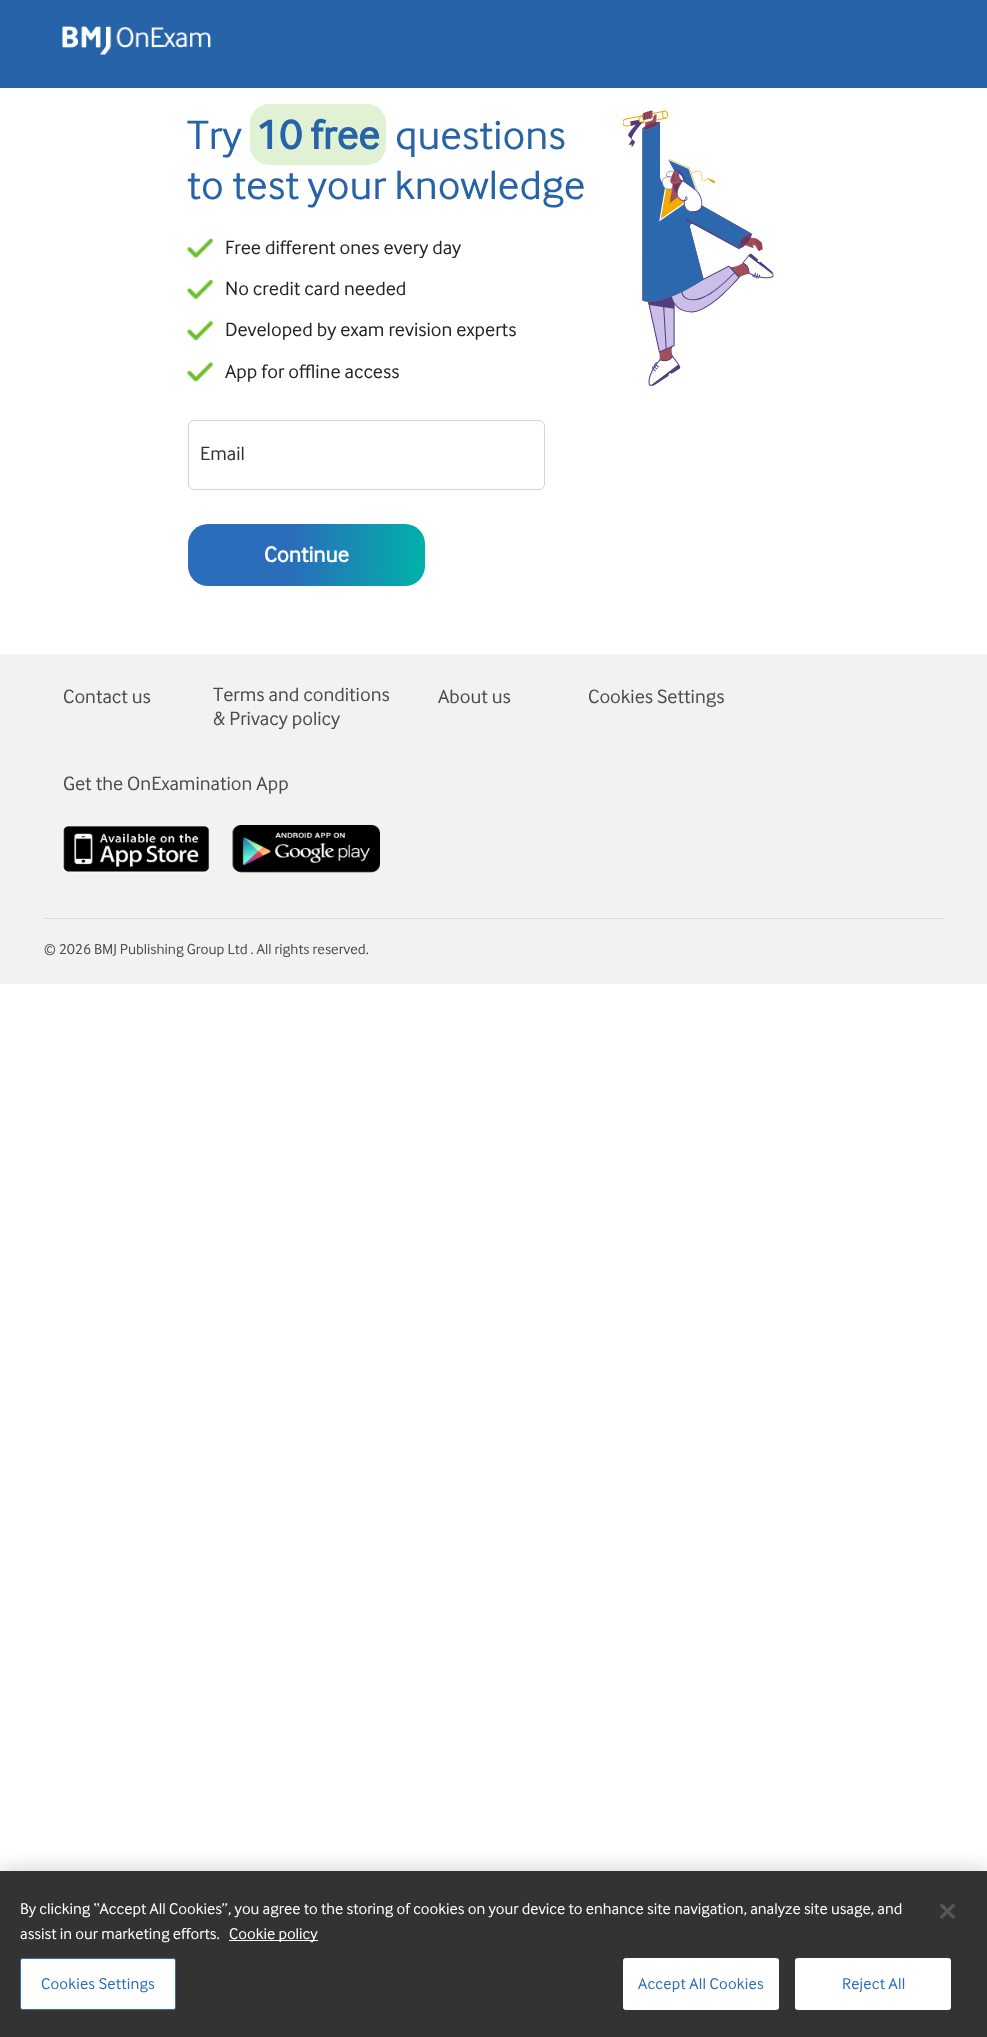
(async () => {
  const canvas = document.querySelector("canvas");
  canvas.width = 987;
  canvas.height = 2037;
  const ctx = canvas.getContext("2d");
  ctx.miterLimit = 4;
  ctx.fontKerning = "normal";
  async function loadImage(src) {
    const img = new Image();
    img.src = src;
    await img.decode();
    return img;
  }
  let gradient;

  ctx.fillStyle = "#ffffff";
  ctx.fillRect(0, 0, 987, 2037);
  ctx.fillStyle = "#2663a8";
  ctx.fillRect(0, 0, 987, 88);
  ctx.drawImage(await loadImage("img/1.png"), 62, 26, 149, 29);
  ctx.fillStyle = "#e1f2d4";
  ctx.beginPath();
  ctx.roundRect(250, 104, 136, 61, 19);
  ctx.fill();
  ctx.drawImage(await loadImage("img/2.png"), 187, 238, 27, 20);
  ctx.drawImage(await loadImage("img/3.png"), 187, 280, 27, 19);
  ctx.drawImage(await loadImage("img/4.png"), 187, 321, 27, 20);
  ctx.drawImage(await loadImage("img/5.png"), 187, 362, 27, 20);
  ctx.drawImage(await loadImage("img/6.png"), 623, 110, 151, 276);
  ctx.beginPath();
  ctx.roundRect(188.5, 420.5, 356, 69, 5.5);
  ctx.strokeStyle = "#ced4da";
  ctx.stroke();
  gradient = ctx.createLinearGradient(187, 551, 426, 559);
  gradient.addColorStop(0.44, "#2a6ebb");
  gradient.addColorStop(1, "#00b2a9");
  ctx.fillStyle = gradient;
  ctx.beginPath();
  ctx.roundRect(188, 524, 237, 62, 20);
  ctx.fill();
  ctx.fillStyle = "#f2f2f2";
  ctx.fillRect(0, 654, 987, 330);
  ctx.drawImage(await loadImage("img/7.png"), 62, 826, 148, 47);
  ctx.drawImage(await loadImage("img/8.png"), 232, 825, 148, 48);
  ctx.fillStyle = "#dadada";
  ctx.fillRect(44, 918, 900, 1);
  ctx.fillStyle = "rgba(0, 0, 0, 0.2)";
  ctx.filter = "blur(11px)";
  ctx.beginPath();
  ctx.rect(0, 1871, 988, 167);
  ctx.fill();
  ctx.filter = "none";
  ctx.fillStyle = "#333333";
  ctx.fillRect(0, 1871, 987, 166);
  ctx.fillStyle = "#ffffff";
  ctx.fillRect(229, 1940, 89, 1);
  ctx.beginPath();
  ctx.roundRect(20.5, 1958.5, 155, 51, 2);
  ctx.fill();
  ctx.strokeStyle = "#2a6ebb";
  ctx.stroke();
  ctx.beginPath();
  ctx.roundRect(623.5, 1958.5, 155, 51, 2);
  ctx.fill();
  ctx.strokeStyle = "#ffffff";
  ctx.stroke();
  ctx.beginPath();
  ctx.roundRect(795.5, 1958.5, 155, 51, 2);
  ctx.fill();
  ctx.stroke();
  ctx.drawImage(await loadImage("img/9.png"), 940, 1904, 15, 15);
  ctx.font = "42.5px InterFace";
  ctx.fillStyle = "#2663a8";
  ctx.fillText("Try", 187, 149);
  ctx.font = "bold 42.5px InterFace";
  ctx.fillText("10 free", 256, 149);
  ctx.font = "42.5px InterFace";
  ctx.fillText("questions", 395, 149);
  ctx.fillText("to test your knowledge", 187, 199);
  ctx.font = "20px InterFace";
  ctx.fillStyle = "#212529";
  for (const [text, x, y] of [
    ["Free different ones every day", 225, 254],
    ["No credit card needed", 225, 295],
    ["Developed by exam revision experts", 225, 336],
    ["App for offline access", 225, 378],
  ]) {
    ctx.fillText(text, x, y);
  }
  ctx.fillStyle = "#333333";
  ctx.fillText("Email", 200, 460);
  ctx.font = "bold 22.5px InterFace";
  ctx.fillStyle = "#ffffff";
  ctx.fillText("Continue", 264, 562);
  ctx.font = "20px InterFace";
  ctx.fillStyle = "#4a4c4d";
  for (const [text, x, y] of [
    ["Contact us", 63, 703],
    ["Terms and conditions", 213, 701],
    ["& Privacy policy", 213, 725],
    ["About us", 438, 703],
    ["Cookies Settings", 588, 703],
    ["Get the OnExamination App", 63, 790],
  ]) {
    ctx.fillText(text, x, y);
  }
  ctx.font = "15px InterFace";
  ctx.fillText("© 2026 BMJ Publishing Group Ltd . All rights reserved.", 44, 954);
  ctx.font = "16.25px InterFace";
  ctx.fillStyle = "#ffffff";
  for (const [text, x, y] of [
    ["By clicking “Accept All Cookies”, you agree to the storing of cookies on your device to enhance site navigation, analyze site usage, and", 20, 1914],
    ["assist in our marketing efforts.", 20, 1939],
    ["Cookie policy", 229, 1939],
  ]) {
    ctx.fillText(text, x, y);
  }
  ctx.letterSpacing = "0.2px";
  ctx.fillStyle = "#2a6ebb";
  for (const [text, x, y] of [
    ["Cookies Settings", 41, 1989],
    ["Accept All Cookies", 638, 1989],
    ["Reject All", 842, 1989],
  ]) {
    ctx.fillText(text, x, y);
  }
})();
